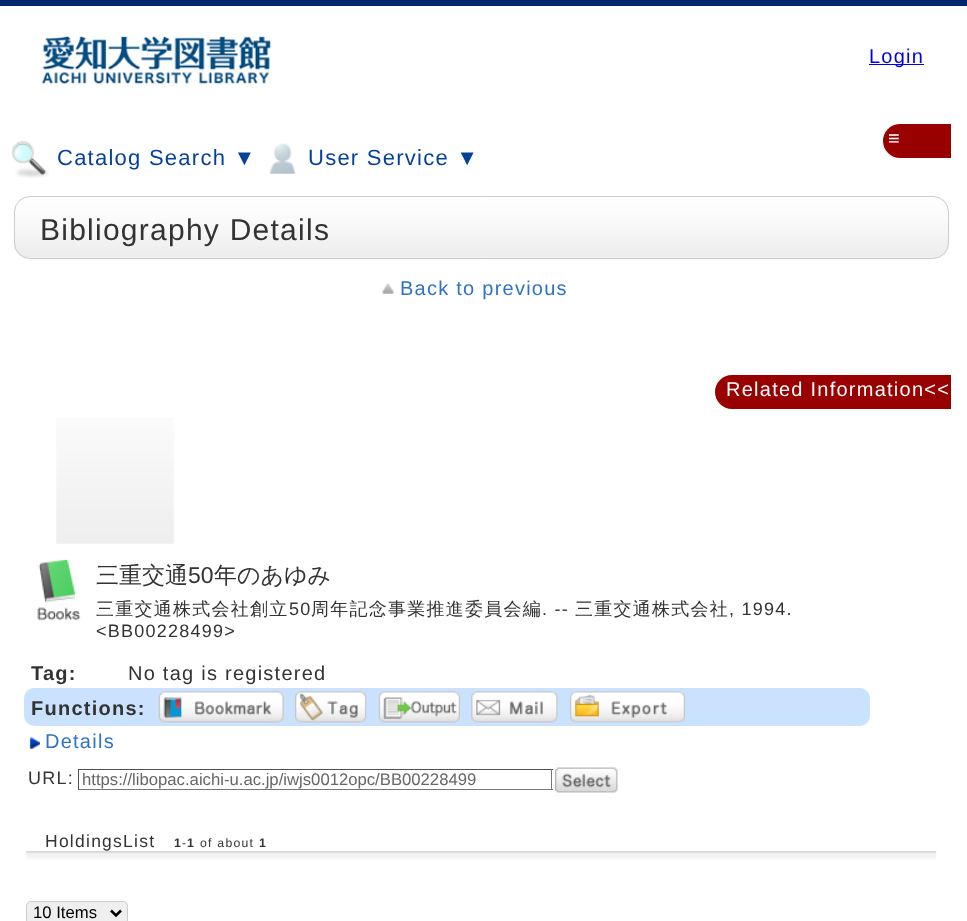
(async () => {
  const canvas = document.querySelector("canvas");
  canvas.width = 967;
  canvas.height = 921;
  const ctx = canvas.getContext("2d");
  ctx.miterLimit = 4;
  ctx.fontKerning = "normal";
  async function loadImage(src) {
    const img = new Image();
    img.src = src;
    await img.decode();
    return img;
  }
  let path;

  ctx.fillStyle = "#ffffff";
  ctx.fillRect(0, 0, 967, 921);
  ctx.fillStyle = "#00266f";
  ctx.fillRect(0, 0, 967, 6);
  ctx.drawImage(await loadImage("img/1.png"), 41, 35, 230, 52);
  ctx.fillStyle = "#0000ee";
  ctx.fillRect(869, 64, 55, 1);
  ctx.fillStyle = "#990000";
  ctx.beginPath();
  ctx.roundRect(883, 124, 68, 34, [17, 0, 0, 17]);
  ctx.fill();
  ctx.drawImage(await loadImage("img/2.png"), 11, 141, 38, 37);
  ctx.drawImage(await loadImage("img/3.png"), 270, 143, 26, 31);
  ctx.fillStyle = "#f6f6f6";
  ctx.beginPath();
  ctx.roundRect(14, 196, 935, 63, 16);
  ctx.fill();
  ctx.drawImage(await loadImage("img/4.png"), 14, 196, 934, 62);
  ctx.beginPath();
  ctx.roundRect(14.5, 196.5, 934, 62, 15.5);
  ctx.strokeStyle = "#cccccc";
  ctx.stroke();
  ctx.drawImage(await loadImage("img/5.png"), 382, 283, 12, 11);
  ctx.drawImage(await loadImage("img/6.png"), 56, 418, 118, 126);
  ctx.drawImage(await loadImage("img/7.png"), 37, 559, 44, 62);
  ctx.fillStyle = "#cbe2ff";
  ctx.beginPath();
  ctx.roundRect(24, 688, 846, 38, 10);
  ctx.fill();
  ctx.drawImage(await loadImage("img/8.png"), 158, 691, 126, 32);
  ctx.drawImage(await loadImage("img/9.png"), 295, 691, 72, 32);
  ctx.drawImage(await loadImage("img/10.png"), 378, 691, 82, 32);
  ctx.drawImage(await loadImage("img/11.png"), 471, 691, 87, 32);
  ctx.drawImage(await loadImage("img/12.png"), 570, 691, 115, 32);
  ctx.drawImage(await loadImage("img/13.png"), 29, 737, 11, 12);
  for (const [x, y, w, h, color] of [
    [78, 769, 475, 1, "#4f4f4f"],
    [551, 769, 1, 21, "#767676"],
    [78, 789, 475, 1, "#767676"],
    [78, 769, 1, 21, "#4f4f4f"],
  ]) {
    ctx.fillStyle = color;
    ctx.fillRect(x, y, w, h);
  }
  ctx.drawImage(await loadImage("img/14.png"), 555, 767, 63, 26);
  ctx.drawImage(await loadImage("img/15.png"), 26, 851, 911, 9);
  ctx.fillStyle = "#efefef";
  ctx.beginPath();
  ctx.roundRect(26.5, 901.5, 101, 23, 4.5);
  ctx.fill();
  ctx.stroke();
  path = new Path2D("M111 910.5L116 915.5L121 910.5");
  ctx.strokeStyle = "#000000";
  ctx.lineWidth = 2.5;
  ctx.stroke(path);
  ctx.fillStyle = "#990000";
  ctx.beginPath();
  ctx.roundRect(715, 375, 236, 34, [17, 0, 0, 17]);
  ctx.fill();
  ctx.letterSpacing = "1.25px";
  ctx.font = "20px Liberation Sans";
  ctx.fillStyle = "#0000ee";
  ctx.fillText("Login", 869, 63);
  ctx.fillStyle = "#ffffff";
  ctx.fillText("≡", 888, 145);
  ctx.font = "22px Liberation Sans";
  ctx.fillStyle = "#04419a";
  ctx.fillText("Catalog Search ▼", 57, 165);
  ctx.fillText("User Service ▼", 308, 165);
  ctx.font = "30px Liberation Sans";
  ctx.fillStyle = "#333333";
  ctx.fillText("Bibliography Details", 40, 240);
  ctx.font = "20px Liberation Sans";
  ctx.fillStyle = "#3072c5";
  ctx.fillText("Back to previous", 400, 295);
  ctx.letterSpacing = "0px";
  ctx.font = "500 23px WenQuanYi Zen Hei";
  ctx.fillStyle = "#333333";
  ctx.fillText("三重交通", 96, 583);
  ctx.font = "23px Liberation Sans";
  ctx.fillText("50", 188, 583);
  ctx.font = "500 23px WenQuanYi Zen Hei";
  ctx.fillText("年のあゆみ", 214, 583);
  ctx.letterSpacing = "1.25px";
  ctx.font = "500 18px WenQuanYi Zen Hei";
  ctx.fillText("三重交通株式会社創立", 96, 615);
  ctx.font = "18px Liberation Sans";
  ctx.fillText("50", 289, 615);
  ctx.font = "500 18px WenQuanYi Zen Hei";
  ctx.fillText("周年記念事業推進委員会編", 311, 615);
  ctx.font = "18px Liberation Sans";
  ctx.fillText(". --", 542, 615);
  ctx.font = "500 18px WenQuanYi Zen Hei";
  ctx.fillText("三重交通株式会社", 575, 615);
  ctx.font = "18px Liberation Sans";
  ctx.fillText(", 1994.", 729, 615);
  ctx.fillText("<BB00228499>", 96, 637);
  ctx.font = "bold 20px Liberation Sans";
  ctx.fillText("Tag:", 31, 680);
  ctx.font = "20px Liberation Sans";
  ctx.fillText("No tag is registered", 128, 680);
  ctx.font = "bold 20px Liberation Sans";
  ctx.fillText("Functions:", 31, 715);
  ctx.font = "20px Liberation Sans";
  ctx.fillStyle = "#3072c5";
  ctx.fillText("Details", 45, 748);
  ctx.font = "18px Liberation Sans";
  ctx.fillStyle = "#333333";
  ctx.fillText("URL:", 28, 784);
  ctx.letterSpacing = "0px";
  ctx.font = "16.7px Liberation Sans";
  ctx.fillStyle = "#666666";
  ctx.fillText("https://libopac.aichi-u.ac.jp/iwjs0012opc/BB00228499", 82, 785);
  ctx.letterSpacing = "1.25px";
  ctx.font = "17.5px Liberation Sans";
  ctx.fillStyle = "#333333";
  ctx.fillText("HoldingsList", 45, 847);
  ctx.font = "bold 12.25px Liberation Sans";
  ctx.fillText("1", 174, 847);
  ctx.font = "12.25px Liberation Sans";
  ctx.fillText("-", 182, 847);
  ctx.font = "bold 12.25px Liberation Sans";
  ctx.fillText("1", 187, 847);
  ctx.font = "12.25px Liberation Sans";
  ctx.fillText("of about", 200, 847);
  ctx.font = "bold 12.25px Liberation Sans";
  ctx.fillText("1", 259, 847);
  ctx.letterSpacing = "0px";
  ctx.font = "16.7px Liberation Sans";
  ctx.fillStyle = "#000000";
  ctx.fillText("10 Items", 33, 918);
  ctx.letterSpacing = "1.25px";
  ctx.font = "20px Liberation Sans";
  ctx.fillStyle = "#ffffff";
  ctx.fillText("Related Information<<", 726, 396);
})();
